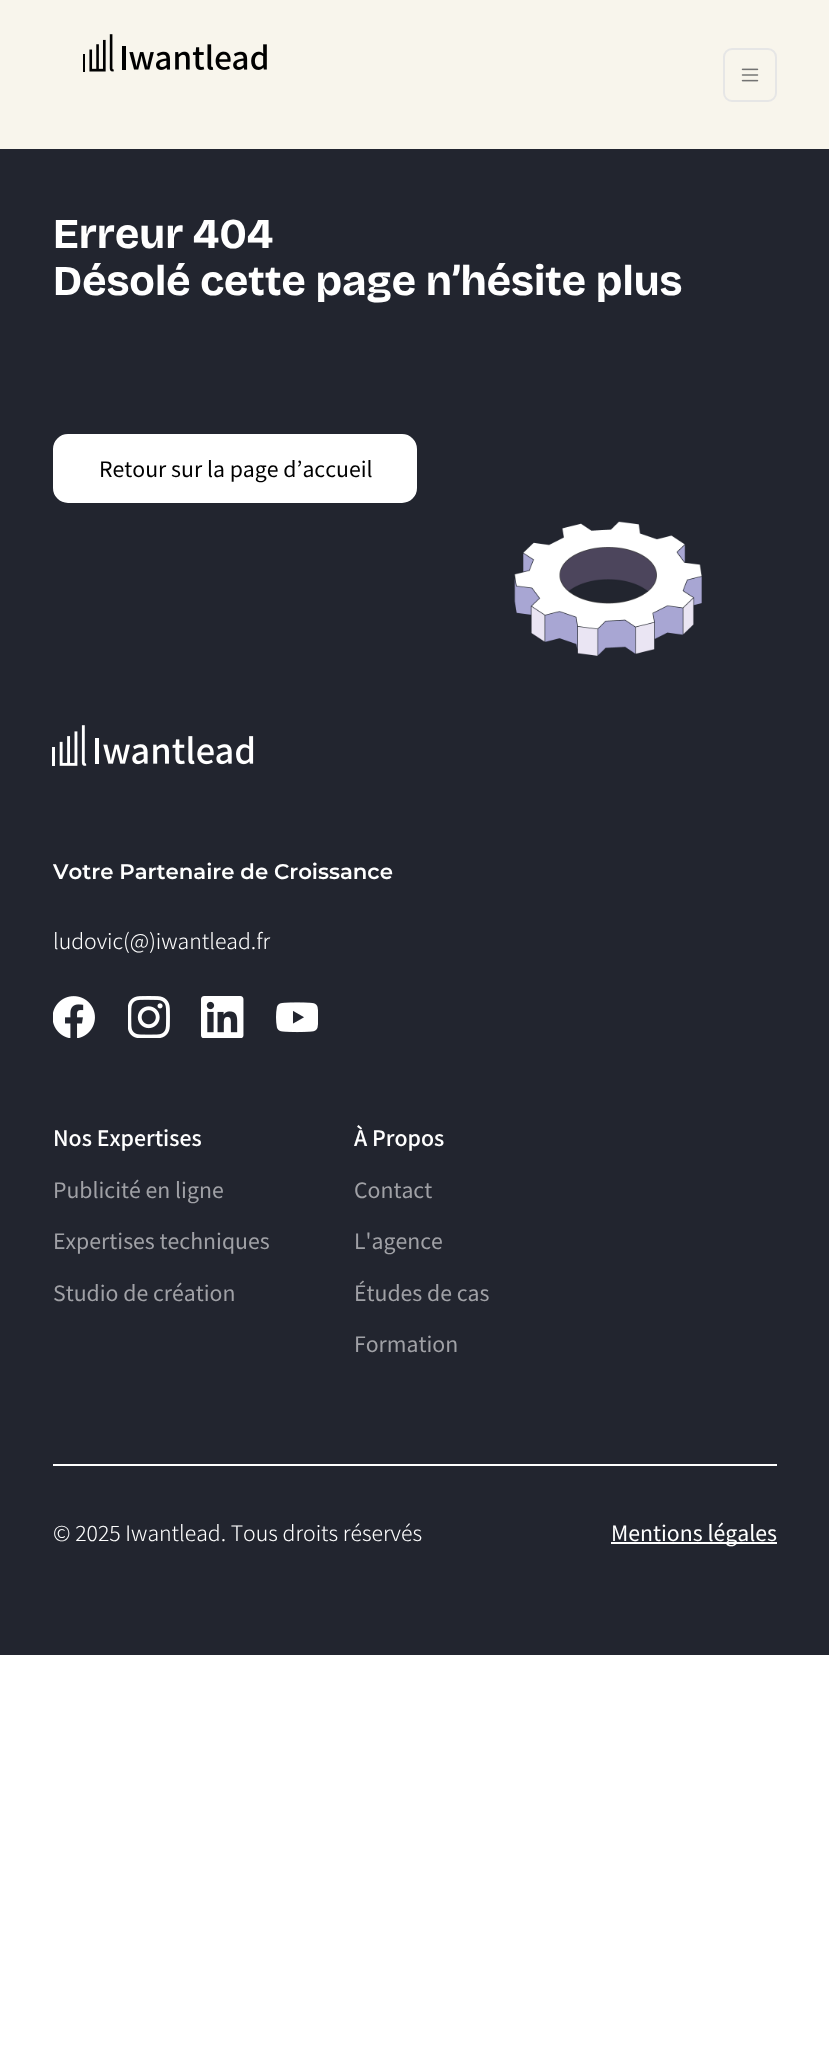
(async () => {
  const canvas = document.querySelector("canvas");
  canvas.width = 829;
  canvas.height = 2048;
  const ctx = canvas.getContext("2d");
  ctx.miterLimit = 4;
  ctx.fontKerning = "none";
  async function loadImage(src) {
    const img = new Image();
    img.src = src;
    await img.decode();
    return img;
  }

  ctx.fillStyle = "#ffffff";
  ctx.fillRect(0, 0, 829, 2048);
  ctx.fillStyle = "#f8f5ec";
  ctx.fillRect(0, 0, 829, 149);
  ctx.drawImage(await loadImage("img/1.png"), 83, 34, 184, 38);
  ctx.beginPath();
  ctx.roundRect(724, 49, 52, 52, 8);
  ctx.strokeStyle = "#e6e6e6";
  ctx.lineWidth = 2;
  ctx.stroke();
  ctx.drawImage(await loadImage("img/2.png"), 741, 68, 18, 14);
  ctx.fillStyle = "#22252f";
  ctx.fillRect(0, 149, 829, 1506);
  ctx.fillStyle = "#ffffff";
  ctx.beginPath();
  ctx.roundRect(54.5, 435.5, 361, 66, 13.5);
  ctx.fill();
  ctx.strokeStyle = "#ffffff";
  ctx.lineWidth = 3;
  ctx.stroke();
  ctx.drawImage(await loadImage("img/3.png"), 514, 521, 188, 135);
  ctx.drawImage(await loadImage("img/4.png"), 52, 725, 202, 41);
  ctx.drawImage(await loadImage("img/5.png"), 53, 996, 42, 42);
  ctx.drawImage(await loadImage("img/6.png"), 128, 996, 42, 42);
  ctx.drawImage(await loadImage("img/7.png"), 201, 996, 43, 42);
  ctx.drawImage(await loadImage("img/8.png"), 276, 1002, 42, 31);
  ctx.fillRect(53, 1464, 724, 2);
  ctx.fillRect(611, 1542, 166, 2);
  ctx.font = "bold 42.5px Bricolage Grotesque";
  ctx.fillText("Erreur 404", 53, 248);
  ctx.fillText("Désolé cette page n’hésite plus", 53, 295);
  ctx.font = "21.25px Noto Sans JP";
  ctx.fillStyle = "#000000";
  ctx.fillText("Retour sur la page d’accueil", 99, 477);
  ctx.font = "600 21.25px Montserrat";
  ctx.fillStyle = "#ffffff";
  ctx.fillText("Votre Partenaire de Croissance", 53, 879);
  ctx.font = "300 21.25px Noto Sans JP";
  ctx.fillText("ludovic(@)iwantlead.fr", 53, 949);
  ctx.font = "500 21.25px Noto Sans JP";
  ctx.fillText("Nos Expertises", 53, 1146);
  ctx.font = "21.25px Noto Sans JP";
  ctx.fillStyle = "#a0a1a6";
  for (const [text, x, y] of [
    ["Publicité en ligne", 53, 1198],
    ["Expertises techniques", 53, 1249],
    ["Studio de création", 53, 1301],
  ]) {
    ctx.fillText(text, x, y);
  }
  ctx.font = "500 21.25px Noto Sans JP";
  ctx.fillStyle = "#ffffff";
  ctx.fillText("À Propos", 354, 1146);
  ctx.font = "21.25px Noto Sans JP";
  ctx.fillStyle = "#a0a1a6";
  for (const [text, x, y] of [
    ["Contact", 354, 1198],
    ["L'agence", 354, 1249],
    ["Études de cas", 354, 1301],
    ["Formation", 354, 1352],
  ]) {
    ctx.fillText(text, x, y);
  }
  ctx.font = "300 21.25px Noto Sans JP";
  ctx.fillStyle = "#ffffff";
  ctx.fillText("© 2025 Iwantlead. Tous droits réservés", 53, 1541);
  ctx.font = "21.25px Noto Sans JP";
  ctx.fillText("Mentions légales", 611, 1541);
})();
